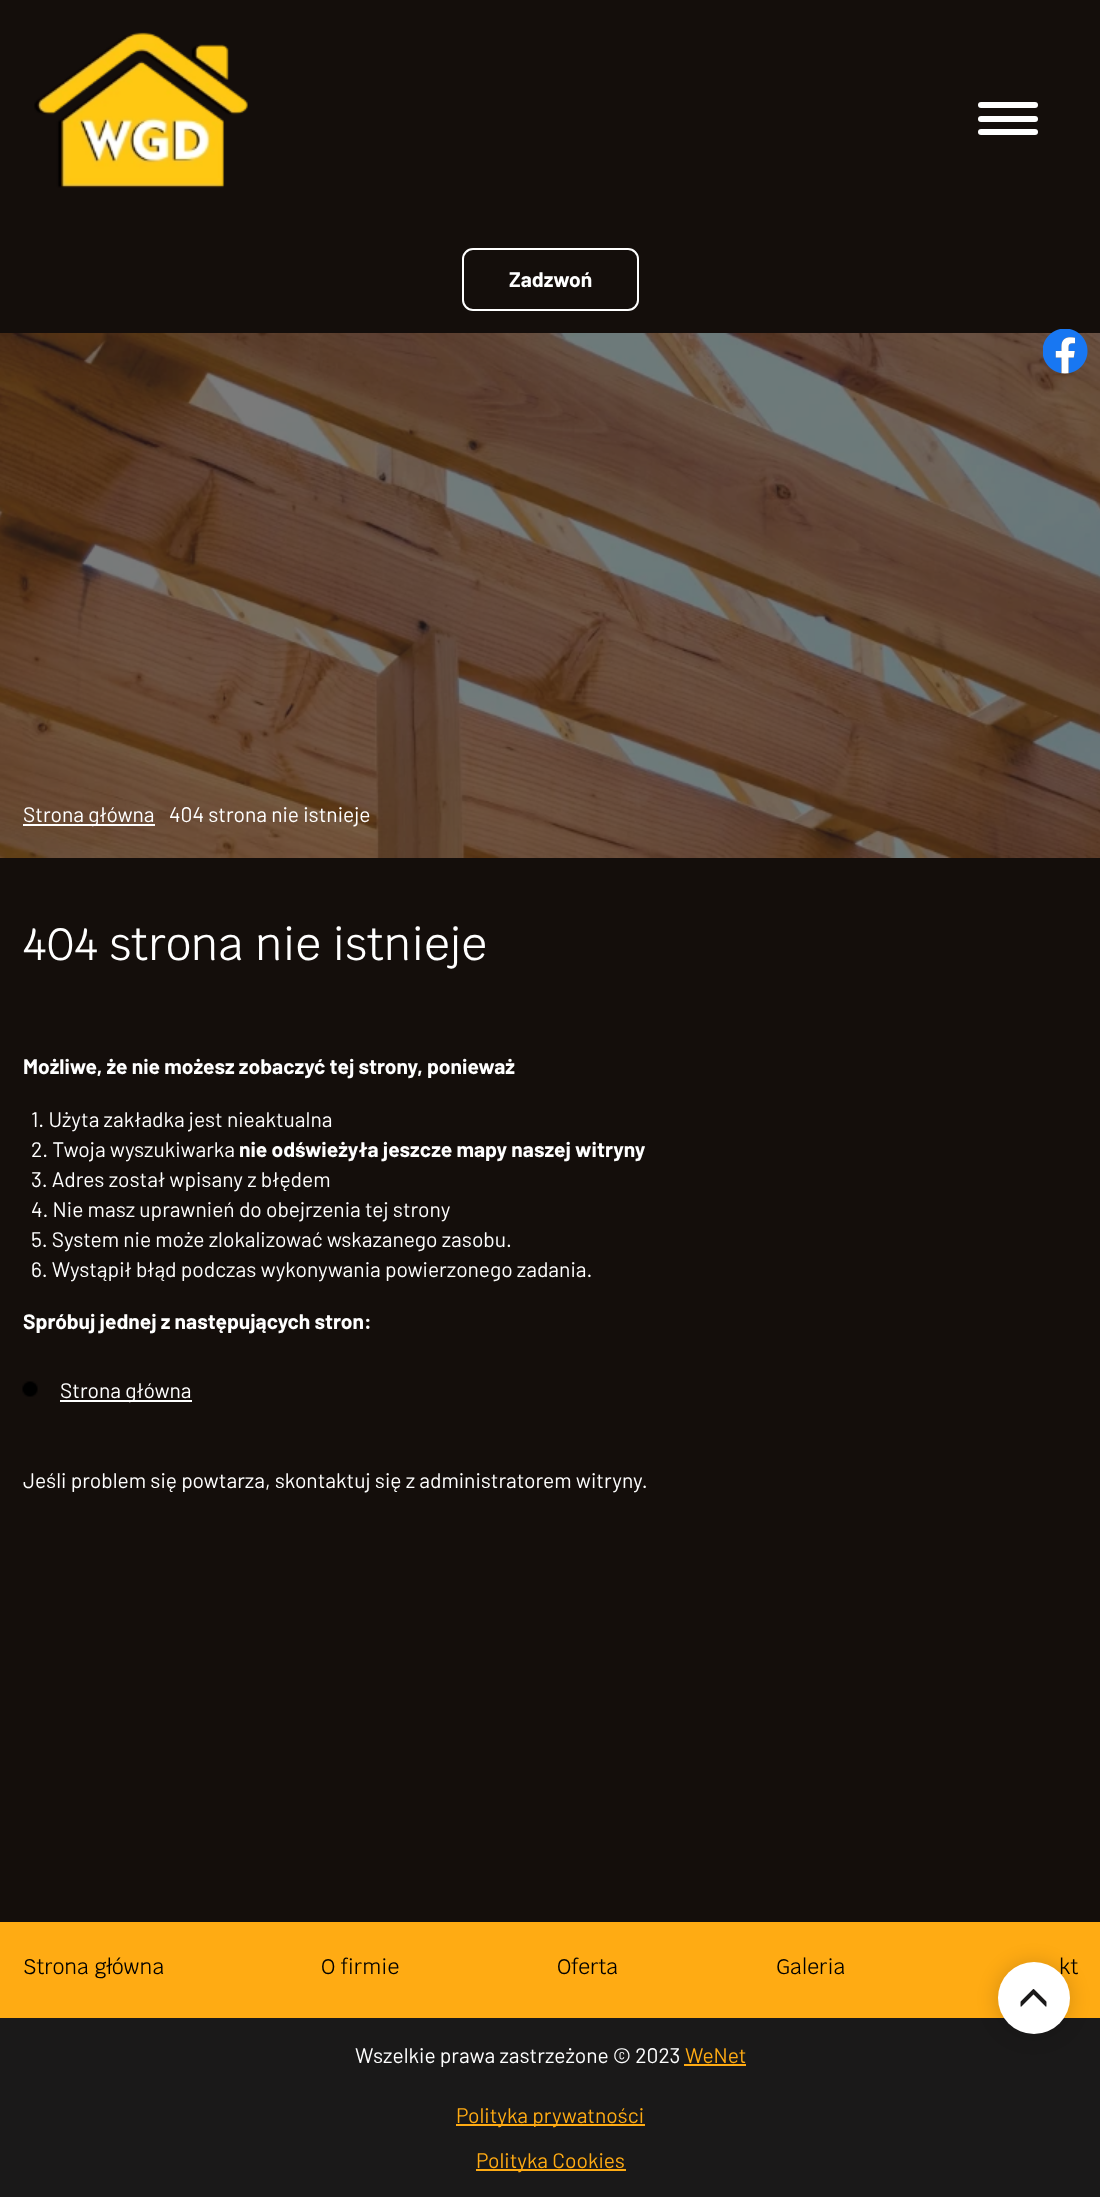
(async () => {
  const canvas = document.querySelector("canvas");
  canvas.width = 1100;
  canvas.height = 2197;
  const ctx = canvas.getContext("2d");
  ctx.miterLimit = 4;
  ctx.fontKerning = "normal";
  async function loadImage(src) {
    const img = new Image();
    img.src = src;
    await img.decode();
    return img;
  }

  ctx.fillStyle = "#140e0b";
  ctx.fillRect(0, 0, 1100, 2197);
  ctx.drawImage(await loadImage("img/1.png"), 34, 32, 214, 156);
  ctx.fillStyle = "#ffffff";
  ctx.beginPath();
  ctx.roundRect(978, 102, 60, 6, 3);
  ctx.fill();
  ctx.beginPath();
  ctx.roundRect(978, 116, 60, 6, 3);
  ctx.fill();
  ctx.beginPath();
  ctx.roundRect(978, 129, 60, 6, 3);
  ctx.fill();
  ctx.beginPath();
  ctx.roundRect(463, 249, 175, 61, 10);
  ctx.strokeStyle = "#ffffff";
  ctx.lineWidth = 2;
  ctx.stroke();
  ctx.drawImage(await loadImage("img/2.png"), 0, 333, 1100, 525);
  ctx.fillRect(23, 824, 132, 2);
  ctx.drawImage(await loadImage("img/3.png"), 22, 1381, 16, 16);
  ctx.fillRect(60, 1400, 132, 2);
  ctx.drawImage(await loadImage("img/4.png"), 1043, 329, 45, 45);
  ctx.fillStyle = "#ffab13";
  ctx.fillRect(0, 1922, 1100, 96);
  ctx.fillStyle = "#1a1919";
  ctx.fillRect(0, 2018, 1100, 179);
  ctx.fillStyle = "rgba(0, 0, 0, 0.15)";
  ctx.filter = "blur(9.5px)";
  ctx.beginPath();
  ctx.roundRect(996, 1962, 75, 74, 37);
  ctx.fill();
  ctx.filter = "none";
  for (const [x, y, w, h, color] of [
    [684, 2064, 62, 2, "#ffab13"],
    [456, 2124, 189, 2, "#ffab13"],
    [476, 2169, 150, 2, "#ffab13"],
  ]) {
    ctx.fillStyle = color;
    ctx.fillRect(x, y, w, h);
  }
  ctx.font = "bold 21px Barlow";
  ctx.fillStyle = "#ffffff";
  ctx.fillText("Zadzwoń", 509, 287);
  ctx.font = "21px Barlow";
  ctx.fillText("Strona główna", 23, 822);
  ctx.fillText("404 strona nie istnieje", 169, 822);
  ctx.font = "45px Krub";
  ctx.fillText("404 strona nie istnieje", 23, 960);
  ctx.font = "bold 21px Barlow";
  ctx.fillText("Możliwe, że nie możesz zobaczyć tej strony, ponieważ", 23, 1074);
  ctx.font = "21px Barlow";
  ctx.fillText("1. Użyta zakładka jest nieaktualna", 31, 1127);
  ctx.fillText("2. Twoja wyszukiwarka", 31, 1157);
  ctx.font = "bold 21px Barlow";
  ctx.fillText("nie odświeżyła jeszcze mapy naszej witryny", 239, 1157);
  ctx.font = "21px Barlow";
  for (const [text, x, y] of [
    ["3. Adres został wpisany z błędem", 31, 1187],
    ["4. Nie masz uprawnień do obejrzenia tej strony", 31, 1217],
    ["5. System nie może zlokalizować wskazanego zasobu.", 31, 1247],
    ["6. Wystąpił błąd podczas wykonywania powierzonego zadania.", 31, 1277],
  ]) {
    ctx.fillText(text, x, y);
  }
  ctx.font = "bold 21px Barlow";
  ctx.fillText("Spróbuj jednej z następujących stron:", 23, 1329);
  ctx.font = "21px Barlow";
  ctx.fillText("Strona główna", 60, 1398);
  ctx.fillText("Jeśli problem się powtarza, skontaktuj się z administratorem witryny.", 23, 1488);
  ctx.font = "21px Krub";
  ctx.fillStyle = "#000000";
  for (const [text, x, y] of [
    ["Strona główna", 23, 1974],
    ["O firmie", 321, 1974],
    ["Oferta", 557, 1974],
    ["Galeria", 776, 1974],
    ["kt", 1059, 1974],
  ]) {
    ctx.fillText(text, x, y);
  }
  ctx.fillStyle = "#ffffff";
  ctx.beginPath();
  ctx.arc(1034, 1998, 36, 0, Math.PI * 2);
  ctx.fill();
  ctx.drawImage(await loadImage("img/5.png"), 1020, 1989, 27, 18);
  ctx.font = "21px Barlow";
  ctx.fillText("Wszelkie prawa zastrzeżone © 2023", 355, 2063);
  ctx.fillStyle = "#ffab13";
  for (const [text, x, y] of [
    ["WeNet", 685, 2063],
    ["Polityka prywatności", 456, 2123],
    ["Polityka Cookies", 476, 2168],
  ]) {
    ctx.fillText(text, x, y);
  }
})();
